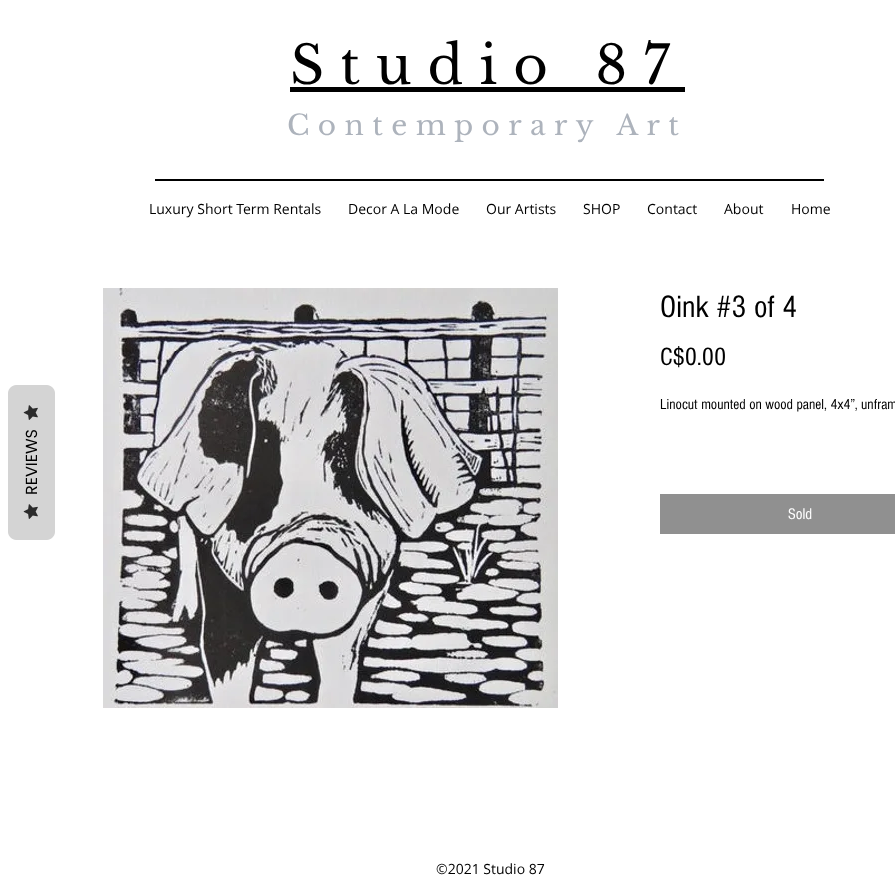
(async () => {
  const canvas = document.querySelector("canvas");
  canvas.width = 895;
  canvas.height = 878;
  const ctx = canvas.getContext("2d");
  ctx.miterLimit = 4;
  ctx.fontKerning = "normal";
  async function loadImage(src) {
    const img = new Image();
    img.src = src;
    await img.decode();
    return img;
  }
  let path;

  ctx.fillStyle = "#ffffff";
  ctx.fillRect(0, 0, 895, 878);
  ctx.fillStyle = "#d4d4d4";
  path = new Path2D("M8 532V393C8 389 12 385 16 385H47C51 385 55 389 55 393V532C55 536 51 540 47 540H16C12 540 8 536 8 532Z");
  ctx.fill(path);
  ctx.drawImage(await loadImage("img/1.png"), 23, 405, 15, 15);
  ctx.drawImage(await loadImage("img/1.png"), 23, 504, 15, 15);
  ctx.fillStyle = "#000000";
  ctx.fillRect(290, 87, 395, 5);
  ctx.fillRect(155, 179, 669, 2);
  ctx.drawImage(await loadImage("img/2.png"), 103, 288, 455, 420);
  ctx.fillStyle = "#909090";
  ctx.fillRect(660, 494, 235, 40);
  ctx.font = "16px Poppins";
  ctx.fillStyle = "#000000";
  ctx.save();
  ctx.translate(37, 495);
  ctx.rotate(-90 * Math.PI / 180);
  ctx.fillText("REVIEWS", 0, 0);
  ctx.restore();
  ctx.letterSpacing = "16px";
  ctx.font = "53px Libre Baskerville";
  ctx.fillText("Studio 87", 290, 84);
  ctx.letterSpacing = "8.4px";
  ctx.font = "28px Libre Baskerville";
  ctx.fillStyle = "#adb3bc";
  ctx.fillText("Contemporary Art", 287, 135);
  ctx.letterSpacing = "0px";
  ctx.font = "14px Open Sans";
  ctx.fillStyle = "#000000";
  for (const [text, x, y] of [
    ["Luxury Short Term Rentals", 149, 214],
    ["Decor A La Mode", 348, 214],
    ["Our Artists", 486, 214],
    ["SHOP", 583, 214],
    ["Contact", 647, 214],
    ["About", 724, 214],
    ["Home", 791, 214],
  ]) {
    ctx.fillText(text, x, y);
  }
  ctx.font = "32px 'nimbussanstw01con'";
  ctx.fillText("Oink #3 of 4", 660, 317);
  ctx.font = "26px 'nimbussanstw01con'";
  ctx.fillText("C$0.00", 660, 365);
  ctx.font = "15px 'nimbussanstw01con'";
  ctx.fillText("Linocut mounted on wood panel, 4x4”, unfram", 660, 409);
  ctx.font = "16px 'nimbussanstw01con'";
  ctx.fillStyle = "#ffffff";
  ctx.fillText("Sold", 788, 519);
  ctx.font = "14px Open Sans";
  ctx.fillStyle = "#000000";
  ctx.fillText("©2021 Studio 87", 436, 874);
})();
